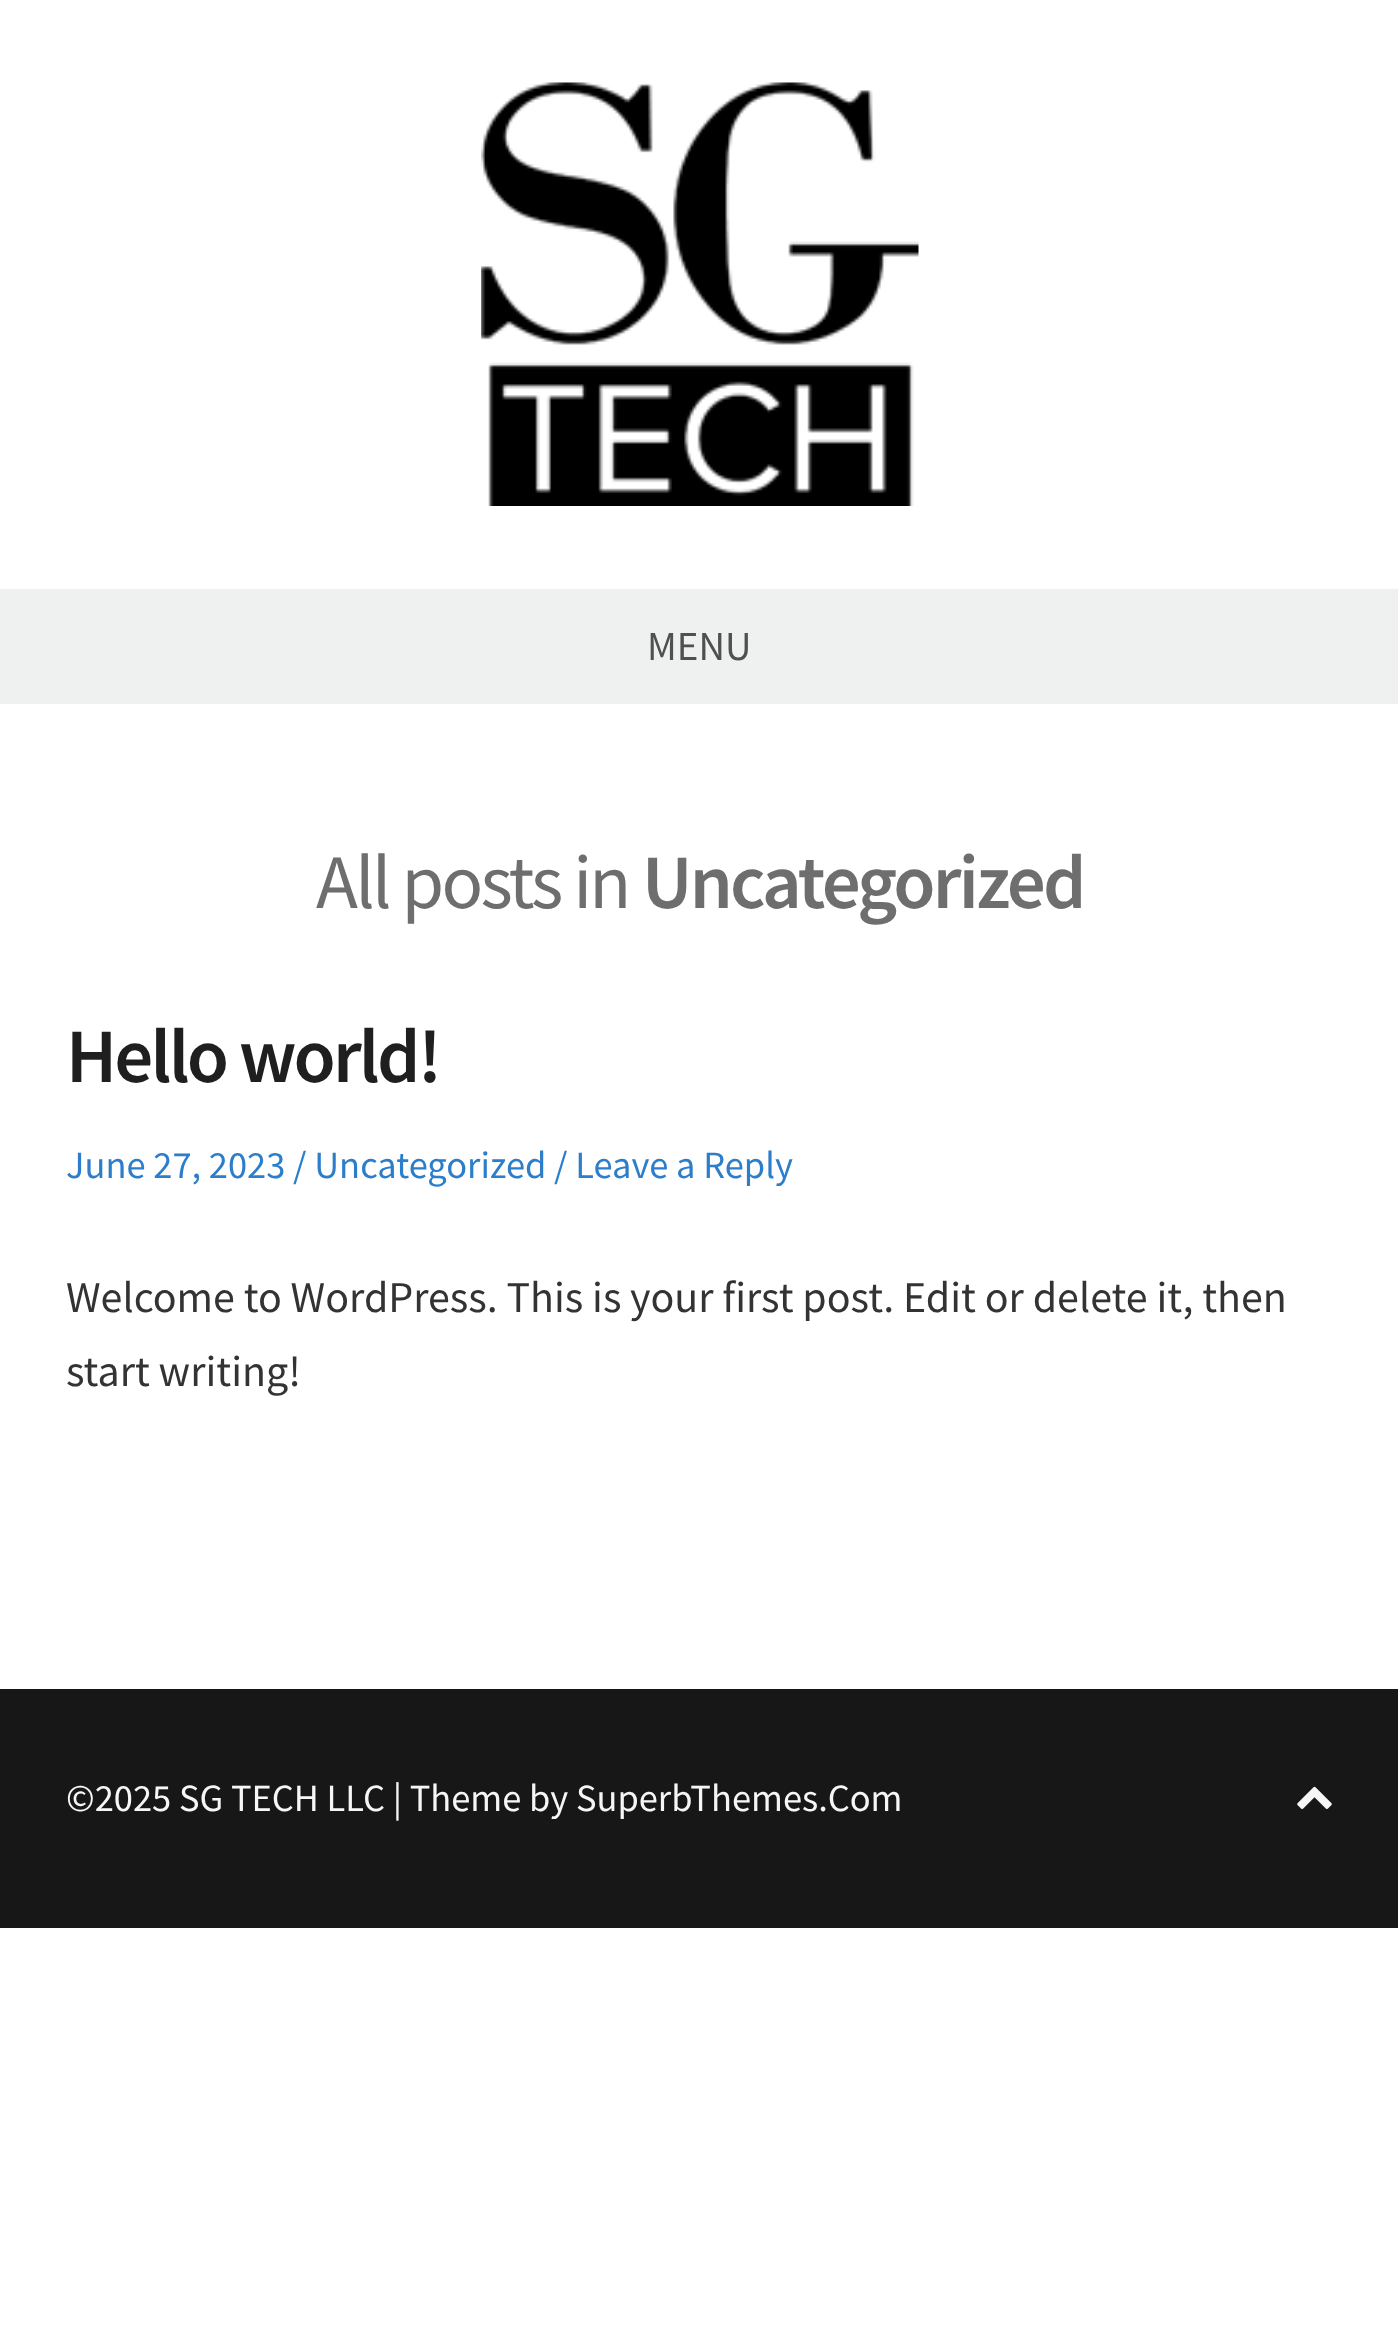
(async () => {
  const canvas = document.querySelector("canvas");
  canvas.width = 1398;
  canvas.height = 2347;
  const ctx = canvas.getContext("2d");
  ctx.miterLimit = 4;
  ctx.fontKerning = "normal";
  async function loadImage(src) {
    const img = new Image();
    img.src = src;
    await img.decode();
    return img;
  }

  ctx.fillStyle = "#ffffff";
  ctx.fillRect(0, 0, 1398, 2347);
  ctx.drawImage(await loadImage("img/1.png"), 481, 82, 438, 424);
  ctx.fillStyle = "#eff0f0";
  ctx.fillRect(0, 589, 1398, 115);
  ctx.fillStyle = "#171717";
  ctx.fillRect(0, 1689, 1398, 239);
  ctx.drawImage(await loadImage("img/2.png"), 1297, 1786, 35, 23);
  ctx.font = "41px Source Sans Pro";
  ctx.fillStyle = "#4f504f";
  ctx.fillText("MENU", 647, 660);
  ctx.letterSpacing = "-2.75px";
  ctx.font = "77px Source Sans Pro";
  ctx.fillStyle = "#6e6e6e";
  ctx.fillText("All posts in", 316, 908);
  ctx.font = "600 77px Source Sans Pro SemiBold";
  ctx.fillText("Uncategorized", 642, 908);
  ctx.fillStyle = "#1f1f1f";
  ctx.fillText("Hello world!", 66, 1082);
  ctx.letterSpacing = "0px";
  ctx.font = "38.5px Source Sans Pro";
  ctx.fillStyle = "#2d7eca";
  ctx.fillText("June 27, 2023 / Uncategorized / Leave a Reply", 66, 1178);
  ctx.font = "44px Source Sans Pro";
  ctx.fillStyle = "#333333";
  ctx.fillText("Welcome to WordPress. This is your first post. Edit or delete it, then", 66, 1312);
  ctx.fillText("start writing!", 66, 1386);
  ctx.font = "38.5px Source Sans Pro";
  ctx.fillStyle = "#f6f6f6";
  ctx.fillText("©2025 SG TECH LLC | Theme by SuperbThemes.Com", 66, 1811);
})();
